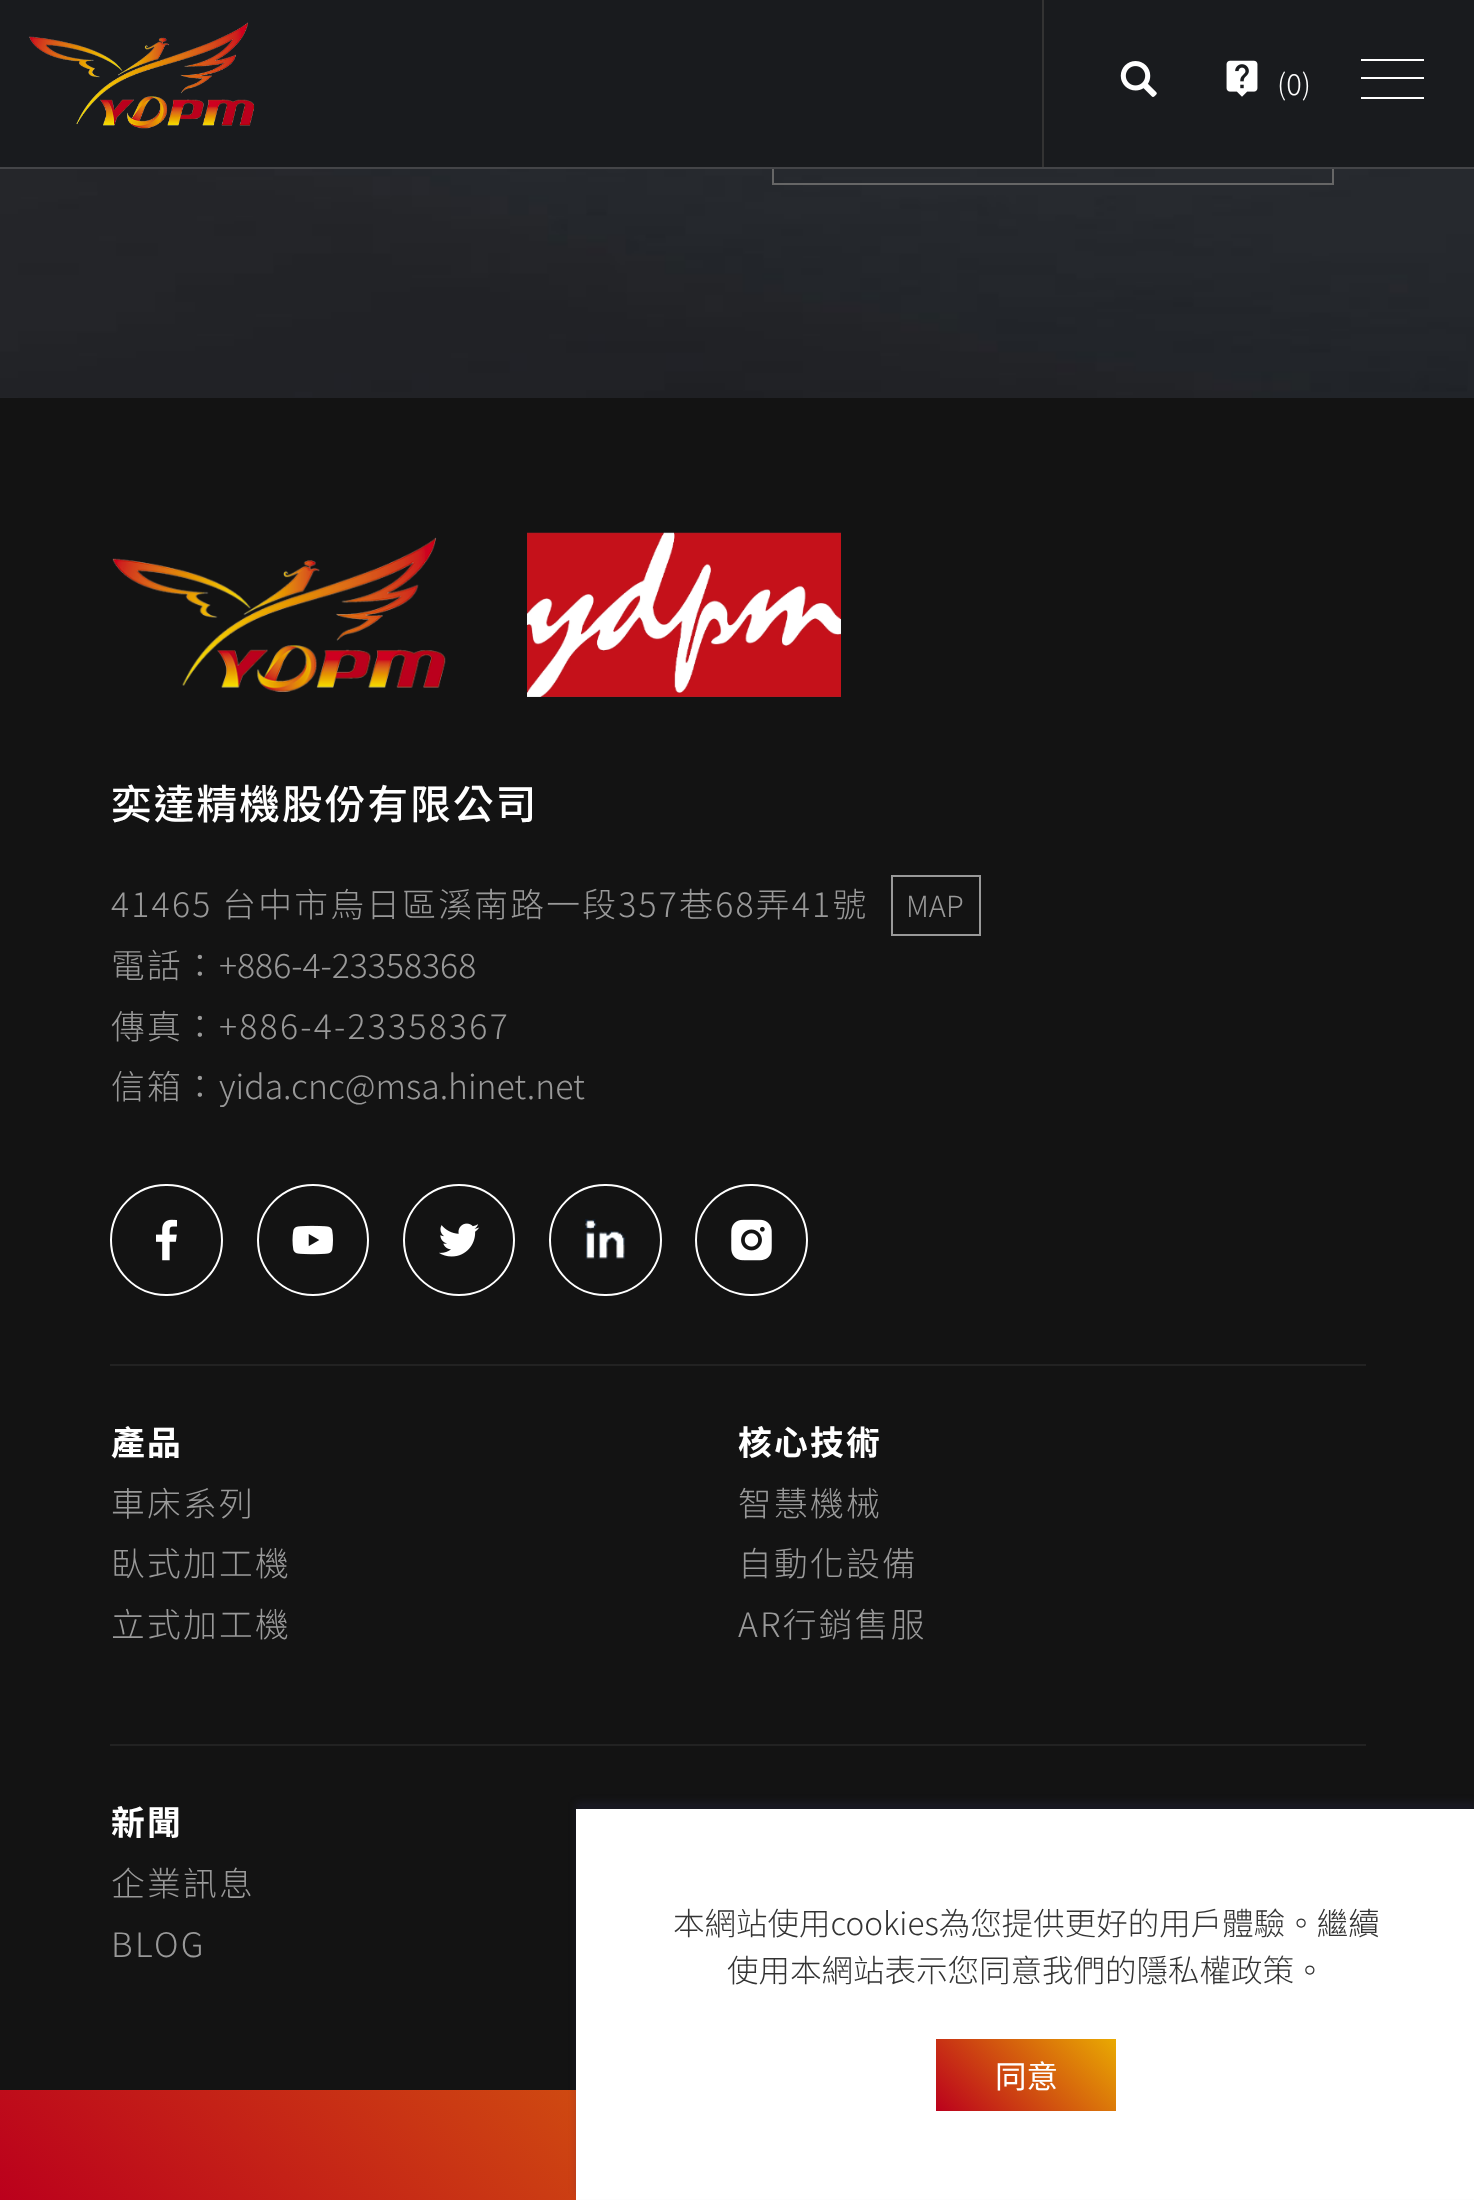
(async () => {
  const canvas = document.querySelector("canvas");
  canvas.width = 1474;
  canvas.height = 2200;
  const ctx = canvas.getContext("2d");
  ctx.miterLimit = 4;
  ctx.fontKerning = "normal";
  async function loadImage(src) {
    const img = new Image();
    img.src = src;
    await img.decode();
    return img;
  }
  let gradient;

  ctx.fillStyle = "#ffffff";
  ctx.fillRect(0, 0, 1474, 2200);
  ctx.drawImage(await loadImage("img/4.png"), 0, 169, 1474, 229);
  ctx.strokeStyle = "#666666";
  ctx.lineWidth = 2;
  ctx.strokeRect(773, 75, 560, 109);
  ctx.fillStyle = "#191b1e";
  ctx.fillRect(0, 0, 1474, 167);
  ctx.fillStyle = "#444548";
  ctx.fillRect(0, 167, 1474, 2);
  ctx.drawImage(await loadImage("img/1.png"), 29, 22, 226, 107);
  ctx.fillStyle = "#333333";
  ctx.fillRect(1042, 0, 2, 167);
  ctx.drawImage(await loadImage("img/2.png"), 1120, 61, 37, 36);
  ctx.drawImage(await loadImage("img/3.png"), 1226, 60, 32, 37);
  for (const [x, y, w, h, color] of [
    [1361, 59, 63, 2, "#ffffff"],
    [1361, 77, 63, 2, "#ffffff"],
    [1361, 97, 63, 2, "#ffffff"],
    [0, 398, 1474, 1692, "#131313"],
  ]) {
    ctx.fillStyle = color;
    ctx.fillRect(x, y, w, h);
  }
  ctx.drawImage(await loadImage("img/5.png"), 112, 537, 334, 155);
  ctx.drawImage(await loadImage("img/6.png"), 527, 532, 314, 165);
  ctx.strokeStyle = "#999999";
  ctx.strokeRect(892, 876, 88, 59);
  ctx.beginPath();
  ctx.roundRect(111, 1185, 111, 110, 55);
  ctx.strokeStyle = "#ffffff";
  ctx.stroke();
  ctx.drawImage(await loadImage("img/7.png"), 156, 1219, 21, 42);
  ctx.beginPath();
  ctx.arc(313, 1240, 55, 0, Math.PI * 2);
  ctx.stroke();
  ctx.drawImage(await loadImage("img/8.png"), 292, 1225, 41, 30);
  ctx.beginPath();
  ctx.arc(459, 1240, 55, 0, Math.PI * 2);
  ctx.stroke();
  ctx.drawImage(await loadImage("img/9.png"), 439, 1223, 41, 34);
  ctx.beginPath();
  ctx.roundRect(550, 1185, 111, 110, 55);
  ctx.stroke();
  ctx.drawImage(await loadImage("img/10.png"), 585, 1219, 41, 41);
  ctx.beginPath();
  ctx.roundRect(696, 1185, 111, 110, 55);
  ctx.stroke();
  ctx.drawImage(await loadImage("img/11.png"), 731, 1219, 41, 42);
  ctx.fillStyle = "#222222";
  ctx.fillRect(110, 1364, 1256, 2);
  ctx.fillRect(110, 1744, 1256, 2);
  gradient = ctx.createLinearGradient(341, 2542, 1135, 1749);
  gradient.addColorStop(0, "#bb001c");
  gradient.addColorStop(1, "#e9aa02");
  ctx.fillStyle = gradient;
  ctx.fillRect(0, 2090, 576, 110);
  ctx.fillStyle = "rgba(51, 51, 102, 0.2)";
  ctx.filter = "blur(3.5px)";
  ctx.beginPath();
  ctx.rect(576, 1802, 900, 392);
  ctx.fill();
  ctx.filter = "none";
  ctx.fillStyle = "#ffffff";
  ctx.fillRect(576, 1809, 898, 390);
  gradient = ctx.createLinearGradient(963, 2138, 1089, 2012);
  gradient.addColorStop(0, "#bb001c");
  gradient.addColorStop(1, "#e9aa02");
  ctx.fillStyle = gradient;
  ctx.fillRect(936, 2039, 180, 72);
  ctx.font = "300 29px Noto Sans TC";
  ctx.fillStyle = "#ffffff";
  ctx.fillText("(0)", 1277, 95);
  ctx.letterSpacing = "2.25px";
  ctx.font = "500 40.5px Noto Sans TC";
  ctx.fillText("奕達精機股份有限公司", 111, 819);
  ctx.font = "300 33.75px Noto Sans TC";
  ctx.fillStyle = "#999999";
  ctx.fillText("41465 台中市烏日區溪南路一段357巷68弄41號", 111, 917);
  ctx.letterSpacing = "0px";
  ctx.font = "300 29px Noto Sans TC";
  ctx.fillText("MAP", 906, 917);
  ctx.letterSpacing = "2.25px";
  ctx.font = "300 33.75px Noto Sans TC";
  ctx.fillText("電話：", 111, 978);
  ctx.letterSpacing = "0px";
  ctx.fillText("+886-4-23358368", 219, 978);
  ctx.letterSpacing = "2.25px";
  ctx.fillText("傳真：+886-4-23358367", 111, 1039);
  ctx.fillText("信箱：", 111, 1099);
  ctx.letterSpacing = "0px";
  ctx.fillText("yida.cnc@msa.hinet.net", 219, 1099);
  ctx.letterSpacing = "2.25px";
  ctx.font = "bold 33.75px Noto Sans TC";
  ctx.fillStyle = "#ffffff";
  ctx.fillText("產品", 111, 1455);
  ctx.font = "300 33.75px Noto Sans TC";
  ctx.fillStyle = "#999999";
  for (const [text, x, y] of [
    ["車床系列", 111, 1516],
    ["臥式加工機", 111, 1576],
    ["立式加工機", 111, 1637],
  ]) {
    ctx.fillText(text, x, y);
  }
  ctx.font = "bold 33.75px Noto Sans TC";
  ctx.fillStyle = "#ffffff";
  ctx.fillText("核心技術", 738, 1455);
  ctx.font = "300 33.75px Noto Sans TC";
  ctx.fillStyle = "#999999";
  for (const [text, x, y] of [
    ["智慧機械", 738, 1516],
    ["自動化設備", 738, 1576],
    ["AR行銷售服", 738, 1637],
  ]) {
    ctx.fillText(text, x, y);
  }
  ctx.font = "bold 33.75px Noto Sans TC";
  ctx.fillStyle = "#ffffff";
  ctx.fillText("新聞", 111, 1835);
  ctx.font = "300 33.75px Noto Sans TC";
  ctx.fillStyle = "#999999";
  ctx.fillText("企業訊息", 111, 1896);
  ctx.fillText("BLOG", 111, 1957);
  ctx.letterSpacing = "0px";
  ctx.font = "300 31.5px Noto Sans TC";
  ctx.fillStyle = "#333333";
  ctx.fillText("本網站使用cookies為您提供更好的用戶體驗。繼續", 673, 1935);
  ctx.fillText("使用本網站表示您同意我們的隱私權政策。", 727, 1982);
  ctx.font = "31.5px Noto Sans TC";
  ctx.fillStyle = "#ffffff";
  ctx.fillText("同意", 995, 2088);
})();
